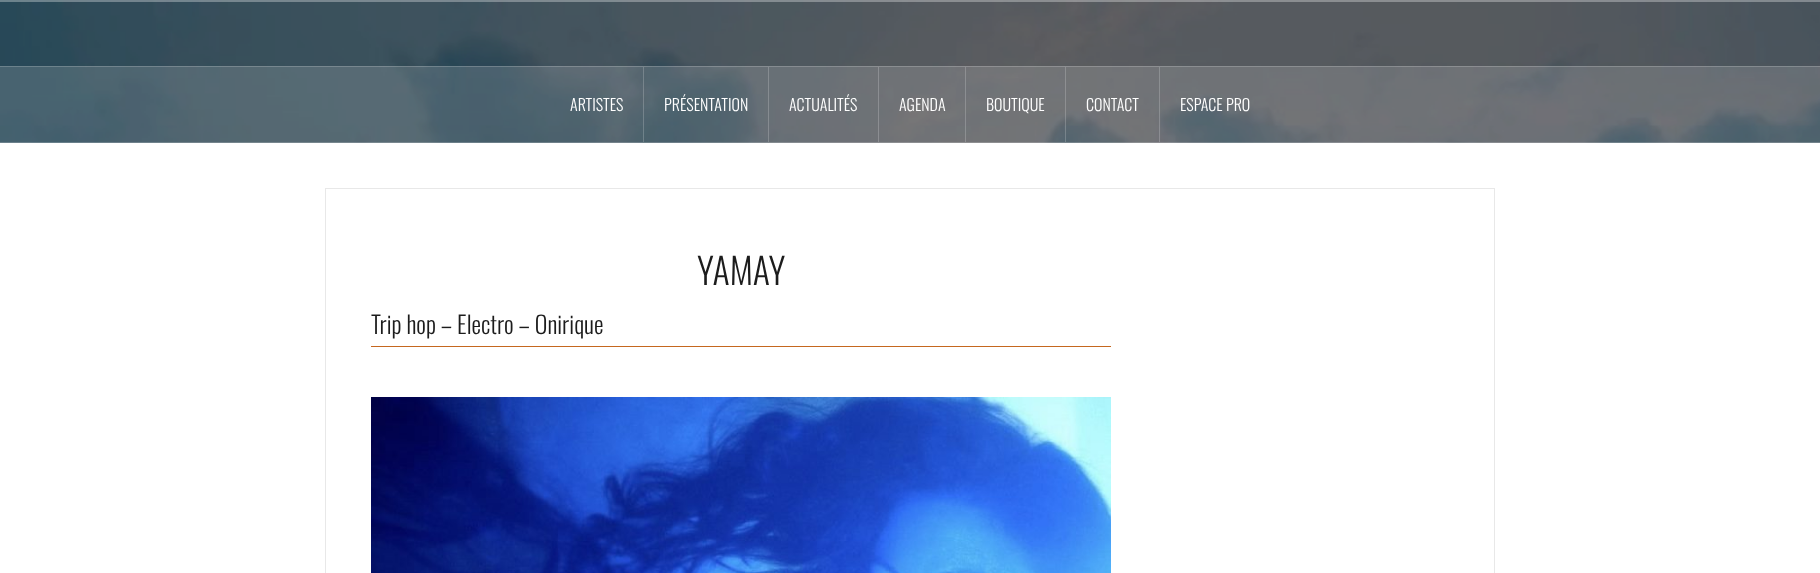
(async () => {
  const canvas = document.querySelector("canvas");
  canvas.width = 1820;
  canvas.height = 573;
  const ctx = canvas.getContext("2d");
  ctx.miterLimit = 4;
  ctx.fontKerning = "normal";
  async function loadImage(src) {
    const img = new Image();
    img.src = src;
    await img.decode();
    return img;
  }

  ctx.fillStyle = "#ffffff";
  ctx.fillRect(0, 0, 1820, 573);
  ctx.drawImage(await loadImage("img/1.png"), 0, 0, 1820, 143);
  for (const [x, y, w, h, color] of [
    [0, 0, 1820, 2, "rgba(255, 255, 255, 0.15)"],
    [0, 0, 1820, 1, "rgba(255, 255, 255, 0.2)"],
    [0, 1, 1820, 1, "rgba(255, 255, 255, 0.2)"],
    [0, 66, 1820, 77, "rgba(255, 255, 255, 0.15)"],
    [0, 66, 1820, 1, "rgba(255, 255, 255, 0.2)"],
    [0, 142, 1820, 1, "rgba(255, 255, 255, 0.2)"],
    [643, 67, 1, 75, "rgba(255, 255, 255, 0.2)"],
    [768, 67, 1, 75, "rgba(255, 255, 255, 0.2)"],
    [878, 67, 1, 75, "#8c8e92"],
    [965, 67, 1, 75, "rgba(255, 255, 255, 0.2)"],
    [1065, 67, 1, 75, "rgba(255, 255, 255, 0.2)"],
    [1159, 67, 1, 75, "rgba(255, 255, 255, 0.2)"],
  ]) {
    ctx.fillStyle = color;
    ctx.fillRect(x, y, w, h);
  }
  ctx.strokeStyle = "#e8e8e8";
  ctx.strokeRect(325.5, 188.5, 1169, 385);
  ctx.fillStyle = "#c5671f";
  ctx.fillRect(371, 346, 740, 1);
  ctx.drawImage(await loadImage("img/2.png"), 371, 397, 740, 176);
  ctx.font = "300 16px Oswald";
  ctx.fillStyle = "#ffffff";
  for (const [text, x, y] of [
    ["ARTISTES", 570, 111],
    ["PRÉSENTATION", 664, 111],
    ["ACTUALITÉS", 789, 111],
    ["AGENDA", 899, 111],
    ["BOUTIQUE", 986, 111],
    ["CONTACT", 1086, 111],
    ["ESPACE PRO", 1180, 111],
  ]) {
    ctx.fillText(text, x, y);
  }
  ctx.font = "300 36px Oswald";
  ctx.fillStyle = "#1c1c1c";
  ctx.fillText("YAMAY", 697, 285);
  ctx.font = "300 24px Oswald";
  ctx.fillText("Trip hop – Electro – Onirique", 371, 334);
})();
